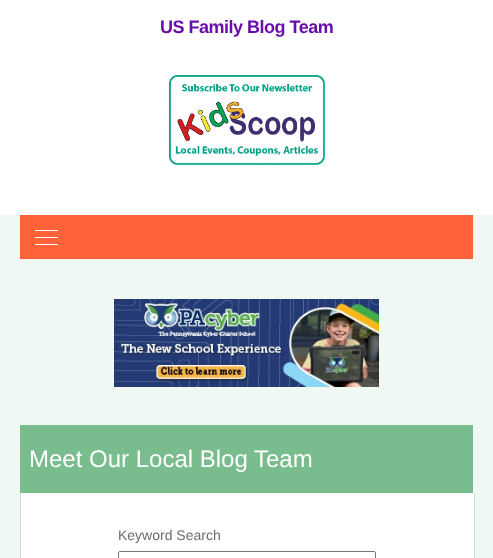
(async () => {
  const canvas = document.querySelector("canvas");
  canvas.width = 493;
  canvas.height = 558;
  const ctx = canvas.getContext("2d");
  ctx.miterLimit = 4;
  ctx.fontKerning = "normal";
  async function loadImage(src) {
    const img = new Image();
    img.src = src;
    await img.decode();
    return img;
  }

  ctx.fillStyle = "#ffffff";
  ctx.fillRect(0, 0, 493, 558);
  ctx.drawImage(await loadImage("img/1.png"), 169, 75, 156, 90);
  ctx.fillStyle = "#f0f8f3";
  ctx.fillRect(0, 215, 493, 343);
  ctx.fillStyle = "#ff6138";
  ctx.fillRect(20, 215, 453, 44);
  ctx.drawImage(await loadImage("img/2.png"), 35, 230, 23, 15);
  ctx.drawImage(await loadImage("img/3.png"), 114, 299, 265, 88);
  for (const [x, y, w, h, color] of [
    [20, 425, 453, 68, "#79bd8f"],
    [21, 493, 453, 65, "#ffffff"],
    [474, 493, 1, 65, "#d7d7d7"],
    [20, 493, 1, 65, "#d7d7d7"],
  ]) {
    ctx.fillStyle = color;
    ctx.fillRect(x, y, w, h);
  }
  ctx.beginPath();
  ctx.roundRect(118.5, 551.5, 257, 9, 1.5);
  ctx.strokeStyle = "#767676";
  ctx.stroke();
  ctx.letterSpacing = "-0.5px";
  ctx.font = "bold 18px Liberation Sans";
  ctx.fillStyle = "#6a0dad";
  ctx.fillText("US Family Blog Team", 160, 33);
  ctx.letterSpacing = "0px";
  ctx.font = "24px Liberation Sans";
  ctx.fillStyle = "#ffffff";
  ctx.fillText("Meet Our Local Blog Team", 29, 467);
  ctx.font = "14px Liberation Sans";
  ctx.fillStyle = "#6c6c6c";
  ctx.fillText("Keyword Search", 118, 540);
})();
